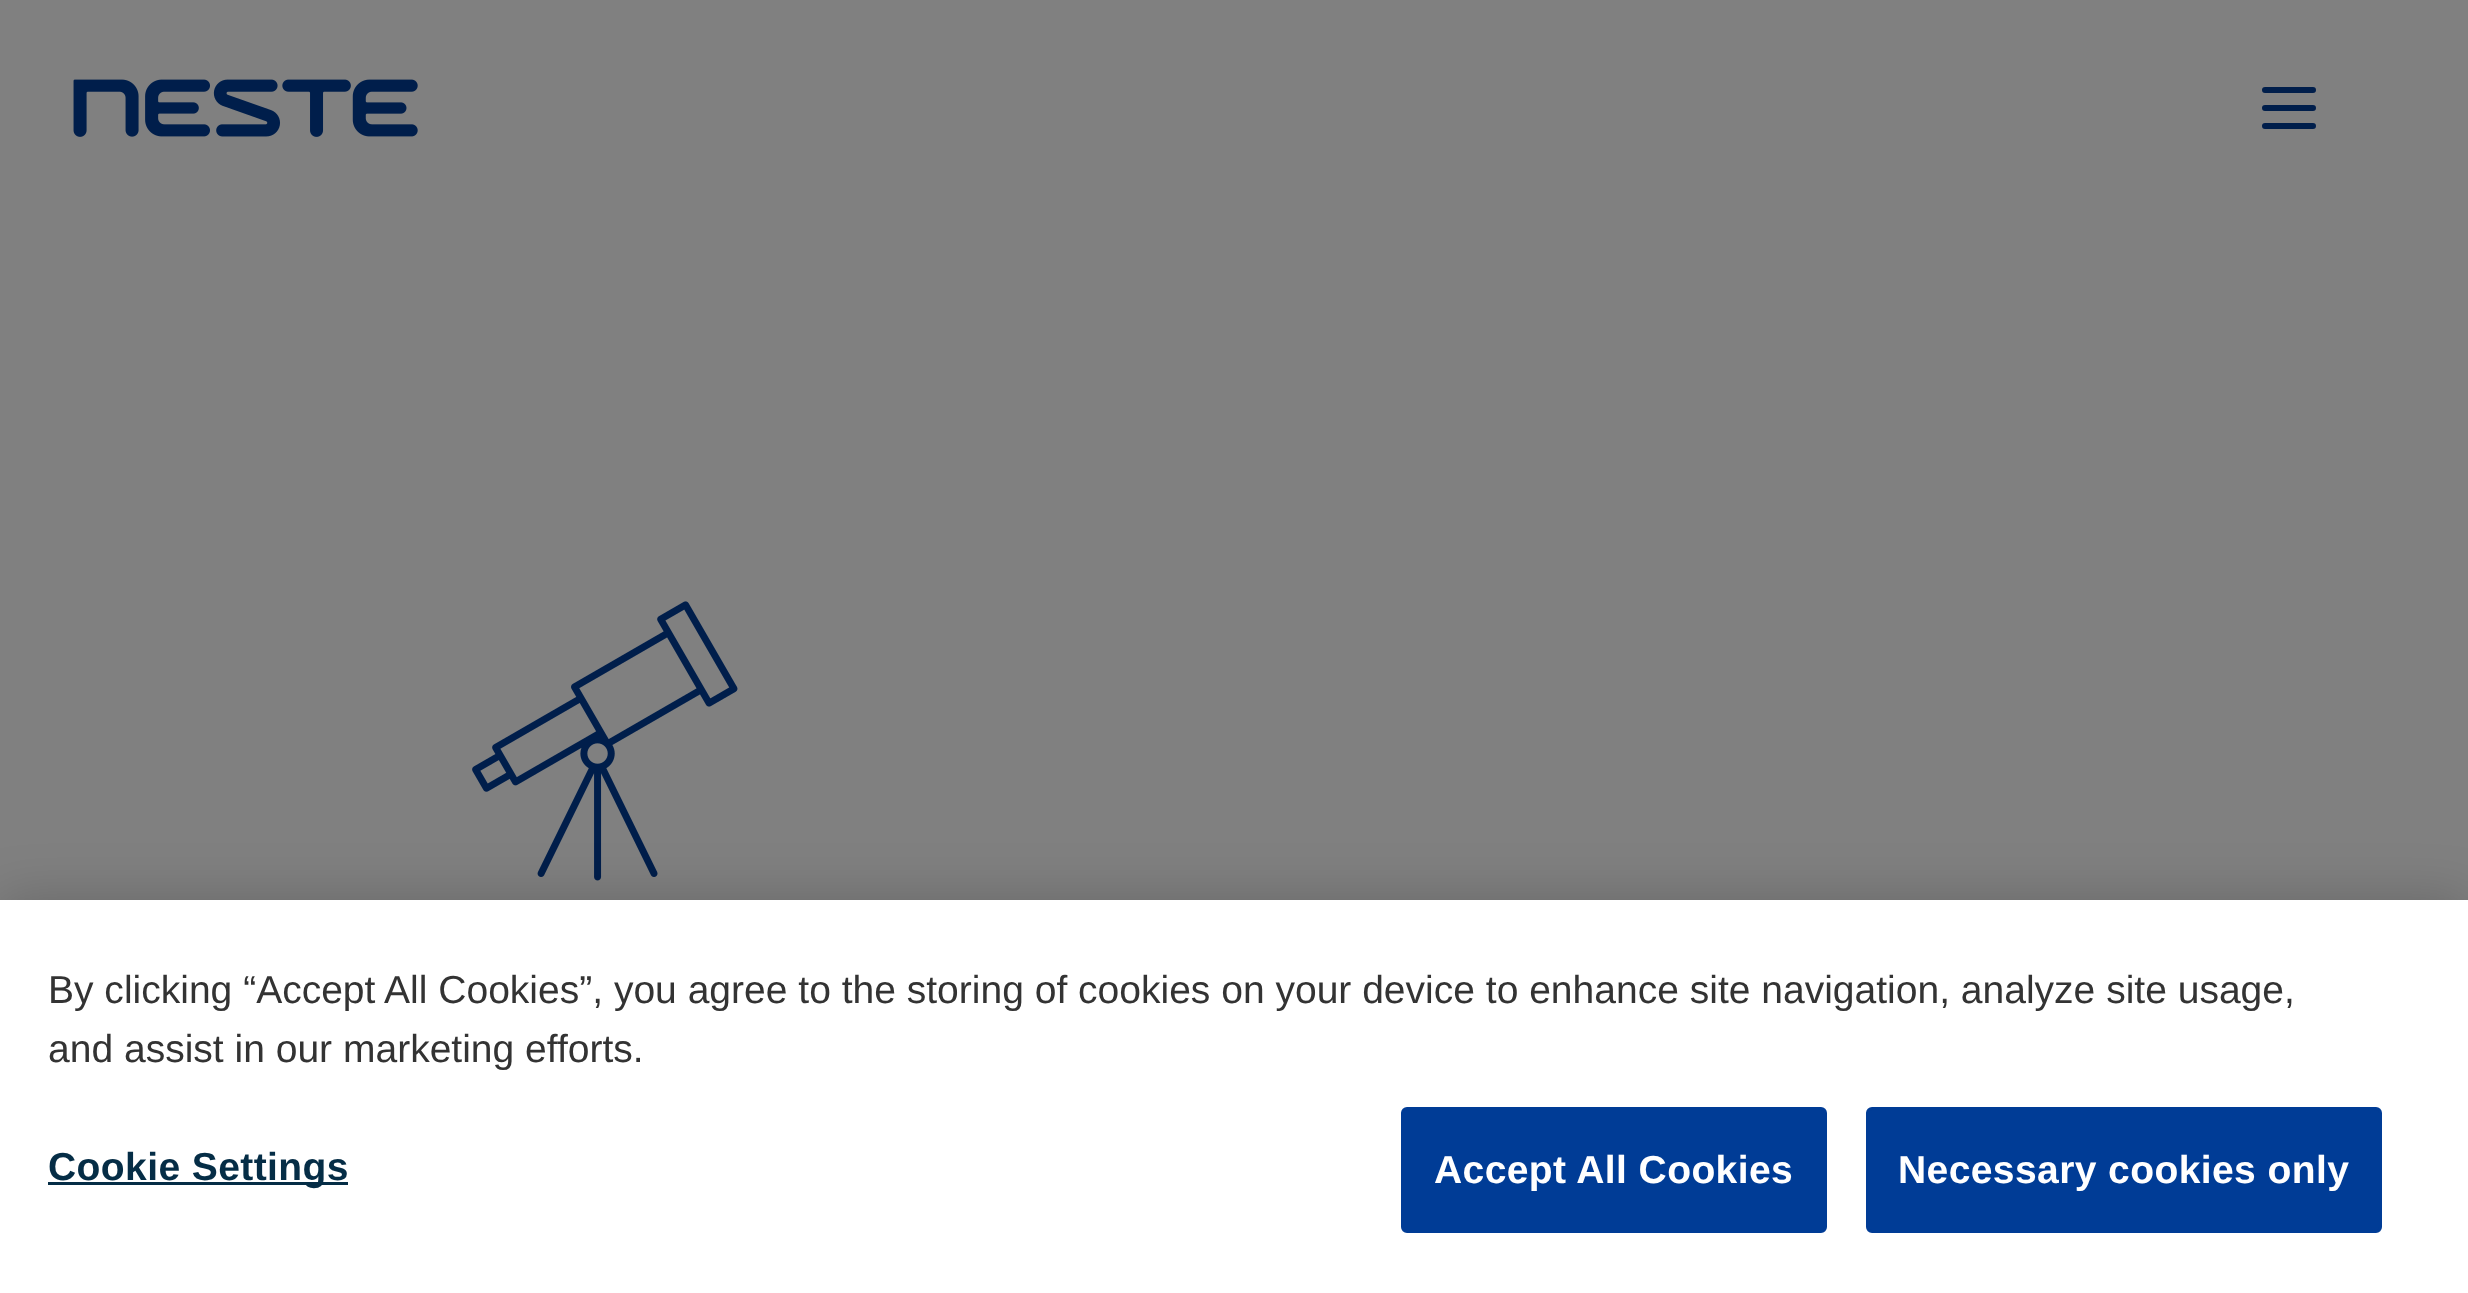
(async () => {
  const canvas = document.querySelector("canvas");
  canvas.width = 2468;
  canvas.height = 1293;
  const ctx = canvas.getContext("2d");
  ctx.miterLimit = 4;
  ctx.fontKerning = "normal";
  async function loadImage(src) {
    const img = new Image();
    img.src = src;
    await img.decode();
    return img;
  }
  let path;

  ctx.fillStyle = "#808080";
  ctx.fillRect(0, 0, 2468, 1293);
  ctx.drawImage(await loadImage("img/1.png"), 73, 79, 345, 58);
  path = new Path2D("M2265 108H2313M2265 90H2313M2265 126H2313");
  ctx.strokeStyle = "#001e4b";
  ctx.lineWidth = 6;
  ctx.lineCap = "round";
  ctx.lineJoin = "round";
  ctx.stroke(path);
  ctx.drawImage(await loadImage("img/2.png"), 472, 601, 266, 280);
  ctx.fillStyle = "rgba(0, 0, 0, 0.2)";
  ctx.filter = "blur(27px)";
  ctx.beginPath();
  ctx.rect(0, 900, 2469, 393);
  ctx.fill();
  ctx.filter = "none";
  ctx.fillStyle = "#ffffff";
  ctx.fillRect(0, 900, 2468, 393);
  ctx.fillStyle = "#052d46";
  ctx.fillRect(48, 1182, 300, 3);
  ctx.fillStyle = "#003c96";
  ctx.beginPath();
  ctx.roundRect(1402.5, 1108.5, 423, 123, 4.5);
  ctx.fill();
  ctx.strokeStyle = "#003c96";
  ctx.lineWidth = 3;
  ctx.lineJoin = "miter";
  ctx.stroke();
  ctx.beginPath();
  ctx.roundRect(1867.5, 1108.5, 513, 123, 4.5);
  ctx.fill();
  ctx.stroke();
  ctx.font = "39.02px Liberation Sans";
  ctx.fillStyle = "#333333";
  ctx.fillText("By clicking “Accept All Cookies”, you agree to the storing of cookies on your device to enhance site navigation, analyze site usage,", 48, 1003);
  ctx.fillText("and assist in our marketing efforts.", 48, 1062);
  ctx.letterSpacing = "0.4px";
  ctx.font = "bold 39.02px Liberation Sans";
  ctx.fillStyle = "#052d46";
  ctx.fillText("Cookie Settings", 48, 1180);
  ctx.fillStyle = "#ffffff";
  ctx.fillText("Accept All Cookies", 1434, 1183);
  ctx.fillText("Necessary cookies only", 1898, 1183);
})();
